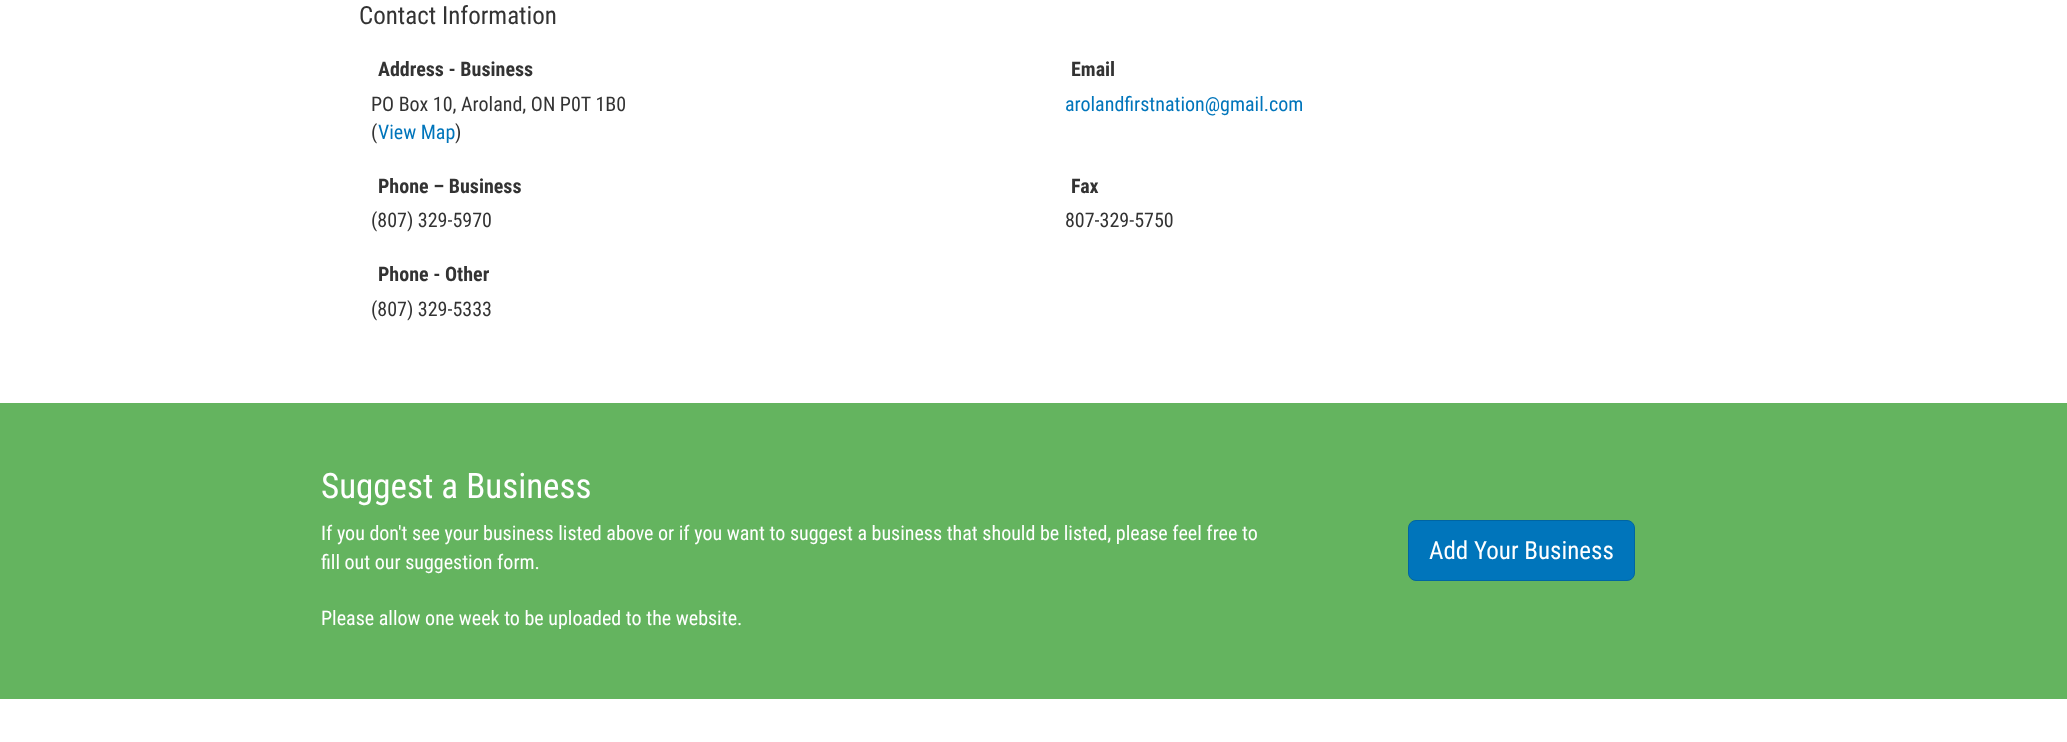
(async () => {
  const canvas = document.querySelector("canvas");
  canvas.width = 2067;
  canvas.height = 742;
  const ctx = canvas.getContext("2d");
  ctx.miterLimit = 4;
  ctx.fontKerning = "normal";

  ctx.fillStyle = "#ffffff";
  ctx.fillRect(0, 0, 2067, 742);
  ctx.fillStyle = "#64b45f";
  ctx.fillRect(0, 403, 2067, 296);
  ctx.fillStyle = "#0075bb";
  ctx.beginPath();
  ctx.roundRect(1408.5, 520.5, 226, 60, 7.5);
  ctx.fill();
  ctx.strokeStyle = "#0065a2";
  ctx.stroke();
  ctx.font = "25px Roboto Condensed";
  ctx.fillStyle = "#333333";
  ctx.fillText("Contact Information", 359, 24);
  ctx.font = "bold 20px Roboto Condensed";
  ctx.fillText("Address - Business", 378, 76);
  ctx.font = "20px Roboto Condensed";
  ctx.fillText("PO Box 10, Aroland, ON P0T 1B0", 371, 111);
  ctx.fillText("(", 371, 139);
  ctx.fillStyle = "#0075bb";
  ctx.fillText("View Map", 378, 139);
  ctx.fillStyle = "#333333";
  ctx.fillText(")", 455, 139);
  ctx.font = "bold 20px Roboto Condensed";
  ctx.fillText("Email", 1071, 76);
  ctx.font = "20px Roboto Condensed";
  ctx.fillStyle = "#0075bb";
  ctx.fillText("arolandfirstnation@gmail.com", 1065, 111);
  ctx.font = "bold 20px Roboto Condensed";
  ctx.fillStyle = "#333333";
  ctx.fillText("Phone – Business", 378, 193);
  ctx.font = "20px Roboto Condensed";
  ctx.fillText("(807) 329-5970", 371, 227);
  ctx.font = "bold 20px Roboto Condensed";
  ctx.fillText("Fax", 1071, 193);
  ctx.font = "20px Roboto Condensed";
  ctx.fillText("807-329-5750", 1065, 227);
  ctx.font = "bold 20px Roboto Condensed";
  ctx.fillText("Phone - Other", 378, 281);
  ctx.font = "20px Roboto Condensed";
  ctx.fillText("(807) 329-5333", 371, 316);
  ctx.font = "35px Roboto Condensed";
  ctx.fillStyle = "#ffffff";
  ctx.fillText("Suggest a Business", 321, 498);
  ctx.font = "20px Roboto Condensed";
  for (const [text, x, y] of [
    ["If you don't see your business listed above or if you want to suggest a business that should be listed, please feel free to", 321, 540],
    ["fill out our suggestion form.", 321, 569],
    ["Please allow one week to be uploaded to the website.", 321, 625],
  ]) {
    ctx.fillText(text, x, y);
  }
  ctx.font = "25px Roboto Condensed";
  ctx.fillText("Add Your Business", 1429, 559);
})();
